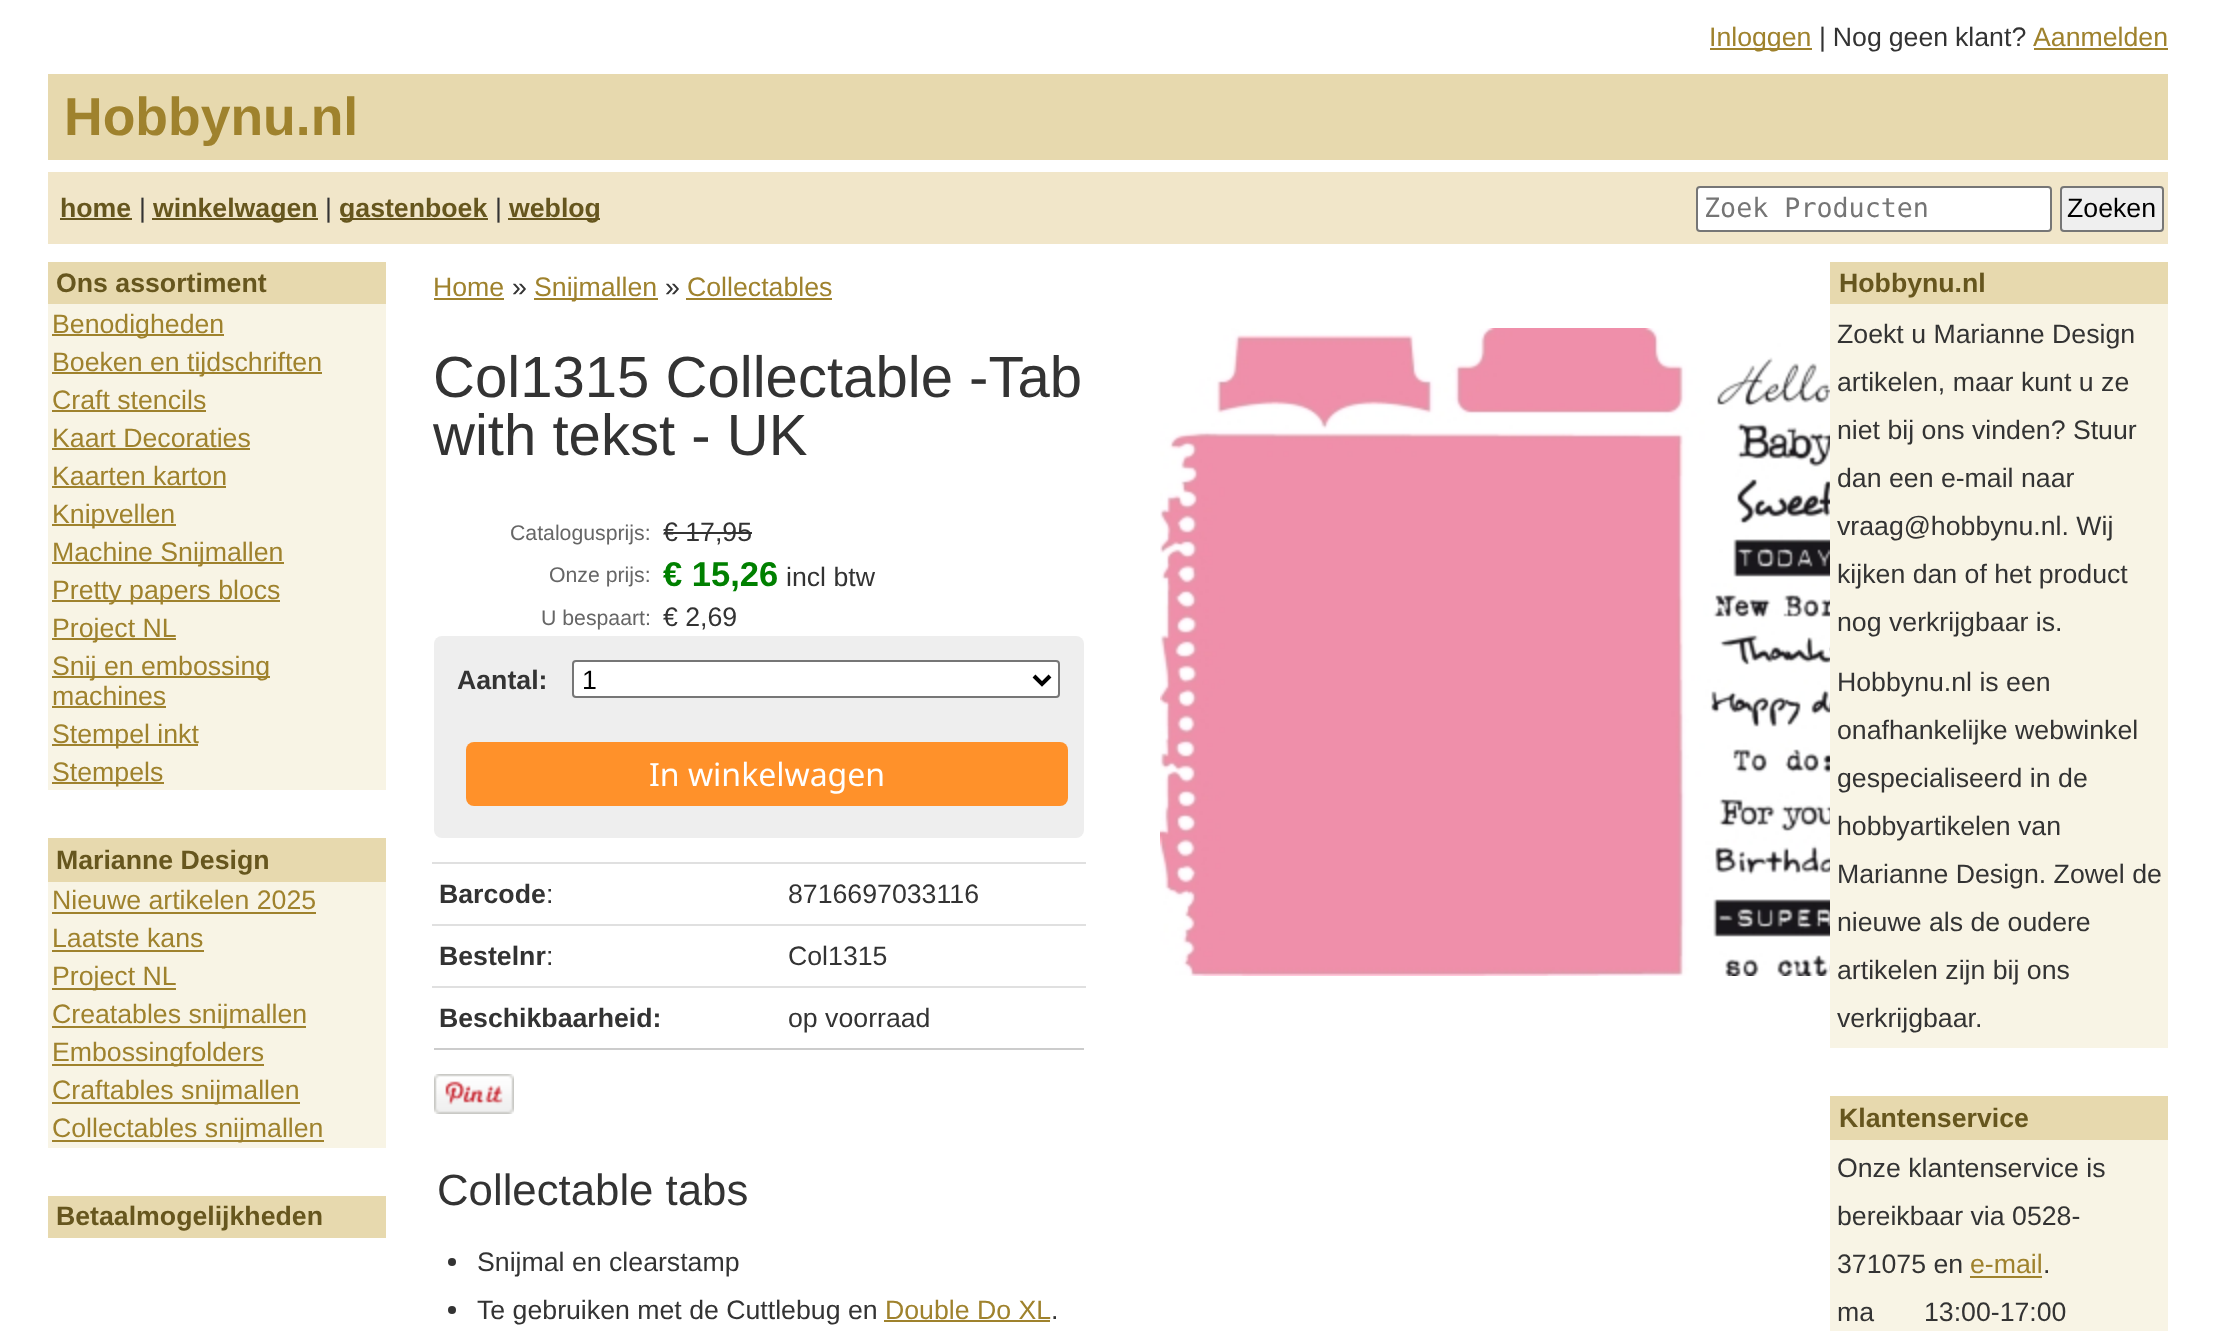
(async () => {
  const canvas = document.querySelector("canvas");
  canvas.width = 2216;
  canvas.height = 1331;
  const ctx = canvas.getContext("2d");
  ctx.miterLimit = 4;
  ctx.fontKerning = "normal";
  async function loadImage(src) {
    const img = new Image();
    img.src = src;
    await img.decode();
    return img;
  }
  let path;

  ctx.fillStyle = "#ffffff";
  ctx.fillRect(0, 0, 2216, 1331);
  for (const [x, y, w, h, color] of [
    [1710, 48, 102, 2, "#9f822d"],
    [2034, 48, 134, 2, "#9f822d"],
    [48, 74, 2120, 86, "#e7d9ae"],
    [48, 172, 2120, 72, "#f1e6c9"],
    [60, 218, 72, 2, "#66561e"],
    [152, 218, 166, 2, "#66561e"],
    [340, 218, 148, 2, "#66561e"],
    [508, 218, 92, 2, "#66561e"],
  ]) {
    ctx.fillStyle = color;
    ctx.fillRect(x, y, w, h);
  }
  ctx.fillStyle = "#ffffff";
  ctx.beginPath();
  ctx.roundRect(1697, 187, 354, 44, 3);
  ctx.fill();
  ctx.strokeStyle = "#767676";
  ctx.lineWidth = 2;
  ctx.stroke();
  ctx.fillStyle = "#efefef";
  ctx.beginPath();
  ctx.roundRect(2061, 187, 102, 44, 3);
  ctx.fill();
  ctx.stroke();
  for (const [x, y, w, h, color] of [
    [48, 262, 338, 42, "#e7d9ae"],
    [48, 304, 338, 486, "#f8f4e5"],
    [52, 334, 172, 2, "#9f822d"],
    [52, 372, 270, 2, "#9f822d"],
    [52, 410, 154, 2, "#9f822d"],
    [52, 448, 198, 2, "#9f822d"],
    [52, 486, 174, 2, "#9f822d"],
    [52, 524, 124, 2, "#9f822d"],
    [52, 562, 232, 2, "#9f822d"],
    [52, 600, 228, 2, "#9f822d"],
    [52, 638, 124, 2, "#9f822d"],
    [52, 676, 218, 2, "#9f822d"],
    [52, 706, 114, 2, "#9f822d"],
    [52, 744, 146, 2, "#9f822d"],
    [52, 782, 112, 2, "#9f822d"],
    [48, 838, 338, 44, "#e7d9ae"],
    [48, 882, 338, 266, "#f8f4e5"],
    [52, 912, 264, 2, "#9f822d"],
    [52, 950, 152, 2, "#9f822d"],
    [52, 988, 124, 2, "#9f822d"],
    [52, 1026, 254, 2, "#9f822d"],
    [52, 1064, 212, 2, "#9f822d"],
    [52, 1102, 248, 2, "#9f822d"],
    [52, 1140, 272, 2, "#9f822d"],
    [48, 1196, 338, 42, "#e7d9ae"],
    [434, 298, 70, 2, "#9f822d"],
    [534, 298, 124, 2, "#9f822d"],
    [686, 298, 146, 2, "#9f822d"],
    [664, 532, 88, 2, "#333333"],
  ]) {
    ctx.fillStyle = color;
    ctx.fillRect(x, y, w, h);
  }
  ctx.fillStyle = "#eeeeee";
  ctx.beginPath();
  ctx.roundRect(434, 636, 650, 202, 8);
  ctx.fill();
  ctx.fillStyle = "#ffffff";
  ctx.beginPath();
  ctx.roundRect(573, 661, 486, 36, 3);
  ctx.fill();
  ctx.stroke();
  path = new Path2D("M1034 676L1042 684L1050 676");
  ctx.strokeStyle = "#000000";
  ctx.lineWidth = 4;
  ctx.stroke(path);
  ctx.fillStyle = "#ff912a";
  ctx.beginPath();
  ctx.roundRect(466, 742, 602, 64, 8);
  ctx.fill();
  for (const [x, y, w, h, color] of [
    [434, 1048, 650, 2, "#cccccc"],
    [432, 862, 654, 2, "#e0e0e0"],
    [432, 924, 654, 2, "#e0e0e0"],
    [432, 986, 654, 2, "#e0e0e0"],
  ]) {
    ctx.fillStyle = color;
    ctx.fillRect(x, y, w, h);
  }
  ctx.drawImage(await loadImage("img/1.png"), 434, 1074, 80, 40);
  ctx.fillStyle = "#333333";
  ctx.beginPath();
  ctx.arc(452, 1262, 4, 0, Math.PI * 2);
  ctx.fill();
  ctx.beginPath();
  ctx.arc(452, 1310, 4, 0, Math.PI * 2);
  ctx.fill();
  ctx.fillStyle = "#9f822d";
  ctx.fillRect(884, 1320, 166, 2);
  ctx.drawImage(await loadImage("img/2.png"), 1160, 328, 670, 648);
  for (const [x, y, w, h, color] of [
    [1830, 262, 338, 42, "#e7d9ae"],
    [1830, 304, 338, 744, "#f8f4e5"],
    [1830, 1096, 338, 44, "#e7d9ae"],
    [1830, 1140, 338, 191, "#f8f4e5"],
    [1970, 1276, 72, 2, "#9f822d"],
  ]) {
    ctx.fillStyle = color;
    ctx.fillRect(x, y, w, h);
  }
  ctx.font = "26.7px Liberation Sans";
  ctx.fillText("Inloggen", 1709, 46);
  ctx.wordSpacing = "-0.5px";
  ctx.fillStyle = "#333333";
  ctx.fillText("| Nog geen klant?", 1819, 46);
  ctx.wordSpacing = "0px";
  ctx.fillStyle = "#9f822d";
  ctx.fillText("Aanmelden", 2033, 46);
  ctx.font = "bold 53.5px Liberation Sans";
  ctx.fillText("Hobbynu.nl", 64, 135);
  ctx.font = "bold 26.7px Liberation Sans";
  ctx.fillStyle = "#66561e";
  ctx.fillText("home", 60, 217);
  ctx.font = "26.7px Liberation Sans";
  ctx.fillStyle = "#333333";
  ctx.fillText("|", 139, 217);
  ctx.font = "bold 26.7px Liberation Sans";
  ctx.fillStyle = "#66561e";
  ctx.fillText("winkelwagen", 153, 217);
  ctx.font = "26.7px Liberation Sans";
  ctx.fillStyle = "#333333";
  ctx.fillText("|", 325, 217);
  ctx.font = "bold 26.7px Liberation Sans";
  ctx.fillStyle = "#66561e";
  ctx.fillText("gastenboek", 339, 217);
  ctx.font = "26.7px Liberation Sans";
  ctx.fillStyle = "#333333";
  ctx.fillText("|", 495, 217);
  ctx.font = "bold 26.7px Liberation Sans";
  ctx.fillStyle = "#66561e";
  ctx.fillText("weblog", 509, 217);
  ctx.font = "26.7px DejaVu Sans Mono";
  ctx.fillStyle = "#757575";
  ctx.fillText("Zoek Producten", 1704, 217);
  ctx.font = "26.7px Liberation Sans";
  ctx.fillStyle = "#000000";
  ctx.fillText("Zoeken", 2067, 217);
  ctx.font = "bold 26.7px Liberation Sans";
  ctx.fillStyle = "#66561e";
  ctx.fillText("Ons assortiment", 56, 292);
  ctx.font = "26.7px Liberation Sans";
  ctx.fillStyle = "#9f822d";
  for (const [text, x, y] of [
    ["Benodigheden", 52, 333],
    ["Boeken en tijdschriften", 52, 371],
    ["Craft stencils", 52, 409],
    ["Kaart Decoraties", 52, 447],
    ["Kaarten karton", 52, 485],
    ["Knipvellen", 52, 523],
    ["Machine Snijmallen", 52, 561],
    ["Pretty papers blocs", 52, 599],
    ["Project NL", 52, 637],
    ["Snij en embossing", 52, 675],
    ["machines", 52, 705],
    ["Stempel inkt", 52, 743],
    ["Stempels", 52, 781],
  ]) {
    ctx.fillText(text, x, y);
  }
  ctx.font = "bold 26.7px Liberation Sans";
  ctx.fillStyle = "#66561e";
  ctx.fillText("Marianne Design", 56, 869);
  ctx.font = "26.7px Liberation Sans";
  ctx.fillStyle = "#9f822d";
  for (const [text, x, y] of [
    ["Nieuwe artikelen 2025", 52, 909],
    ["Laatste kans", 52, 947],
    ["Project NL", 52, 985],
    ["Creatables snijmallen", 52, 1023],
    ["Embossingfolders", 52, 1061],
    ["Craftables snijmallen", 52, 1099],
    ["Collectables snijmallen", 52, 1137],
  ]) {
    ctx.fillText(text, x, y);
  }
  ctx.font = "bold 26.7px Liberation Sans";
  ctx.fillStyle = "#66561e";
  ctx.fillText("Betaalmogelijkheden", 56, 1225);
  ctx.font = "26.7px Liberation Sans";
  ctx.fillStyle = "#9f822d";
  ctx.fillText("Home", 433, 296);
  ctx.fillStyle = "#333333";
  ctx.fillText("»", 512, 296);
  ctx.fillStyle = "#9f822d";
  ctx.fillText("Snijmallen", 534, 296);
  ctx.fillStyle = "#333333";
  ctx.fillText("»", 665, 296);
  ctx.fillStyle = "#9f822d";
  ctx.fillText("Collectables", 687, 296);
  ctx.font = "58.1px Liberation Sans";
  ctx.fillStyle = "#333333";
  ctx.fillText("Col1315 Collectable -Tab", 433, 397);
  ctx.fillText("with tekst - UK", 433, 455);
  ctx.font = "21.25px Liberation Sans";
  ctx.fillStyle = "#666666";
  ctx.fillText("Catalogusprijs:", 510, 540);
  ctx.font = "26.7px Liberation Sans";
  ctx.fillStyle = "#333333";
  ctx.fillText("€ 17,95", 663, 541);
  ctx.font = "21.25px Liberation Sans";
  ctx.fillStyle = "#666666";
  ctx.fillText("Onze prijs:", 549, 582);
  ctx.font = "bold 34.5px Liberation Sans";
  ctx.fillStyle = "#008000";
  ctx.fillText("€ 15,26", 663, 586);
  ctx.font = "26.7px Liberation Sans";
  ctx.fillStyle = "#333333";
  ctx.fillText("incl btw", 786, 586);
  ctx.font = "21.25px Liberation Sans";
  ctx.fillStyle = "#666666";
  ctx.fillText("U bespaart:", 541, 625);
  ctx.font = "26.7px Liberation Sans";
  ctx.fillStyle = "#333333";
  ctx.fillText("€ 2,69", 663, 626);
  ctx.font = "bold 26.7px Liberation Sans";
  ctx.fillText("Aantal:", 457, 689);
  ctx.font = "26.7px Liberation Sans";
  ctx.fillStyle = "#000000";
  ctx.fillText("1", 582, 689);
  ctx.font = "32px Noto Sans";
  ctx.fillStyle = "#ffffff";
  ctx.fillText("In winkelwagen", 649, 786);
  ctx.font = "bold 26.7px Liberation Sans";
  ctx.fillStyle = "#333333";
  ctx.fillText("Barcode", 439, 903);
  ctx.font = "26.7px Liberation Sans";
  ctx.fillText(":", 546, 903);
  ctx.fillText("8716697033116", 788, 903);
  ctx.font = "bold 26.7px Liberation Sans";
  ctx.fillText("Bestelnr", 439, 965);
  ctx.font = "26.7px Liberation Sans";
  ctx.fillText(":", 546, 965);
  ctx.fillText("Col1315", 788, 965);
  ctx.font = "bold 26.7px Liberation Sans";
  ctx.fillText("Beschikbaarheid:", 439, 1027);
  ctx.font = "26.7px Liberation Sans";
  ctx.fillText("op voorraad", 788, 1027);
  ctx.font = "43.75px Liberation Sans";
  ctx.fillText("Collectable tabs", 437, 1205);
  ctx.font = "26.7px Liberation Sans";
  ctx.fillText("Snijmal en clearstamp", 477, 1271);
  ctx.fillText("Te gebruiken met de Cuttlebug en", 477, 1319);
  ctx.fillStyle = "#9f822d";
  ctx.fillText("Double Do XL", 885, 1319);
  ctx.fillStyle = "#333333";
  ctx.fillText(".", 1051, 1319);
  ctx.font = "bold 26.7px Liberation Sans";
  ctx.fillStyle = "#66561e";
  ctx.fillText("Hobbynu.nl", 1839, 292);
  ctx.font = "26.7px Liberation Sans";
  ctx.fillStyle = "#333333";
  for (const [text, x, y] of [
    ["Zoekt u Marianne Design", 1837, 343],
    ["artikelen, maar kunt u ze", 1837, 391],
    ["niet bij ons vinden? Stuur", 1837, 439],
    ["dan een e-mail naar", 1837, 487],
    ["vraag@hobbynu.nl. Wij", 1837, 535],
    ["kijken dan of het product", 1837, 583],
    ["nog verkrijgbaar is.", 1837, 631],
    ["Hobbynu.nl is een", 1837, 691],
    ["onafhankelijke webwinkel", 1837, 739],
    ["gespecialiseerd in de", 1837, 787],
    ["hobbyartikelen van", 1837, 835],
    ["Marianne Design. Zowel de", 1837, 883],
    ["nieuwe als de oudere", 1837, 931],
    ["artikelen zijn bij ons", 1837, 979],
    ["verkrijgbaar.", 1837, 1027],
  ]) {
    ctx.fillText(text, x, y);
  }
  ctx.font = "bold 26.7px Liberation Sans";
  ctx.fillStyle = "#66561e";
  ctx.fillText("Klantenservice", 1839, 1127);
  ctx.font = "26.7px Liberation Sans";
  ctx.fillStyle = "#333333";
  for (const [text, x, y] of [
    ["Onze klantenservice is", 1837, 1177],
    ["bereikbaar via 0528-", 1837, 1225],
    ["371075 en", 1837, 1273],
  ]) {
    ctx.fillText(text, x, y);
  }
  ctx.fillStyle = "#9f822d";
  ctx.fillText("e-mail", 1970, 1273);
  ctx.fillStyle = "#333333";
  for (const [text, x, y] of [
    [".", 2043, 1273],
    ["ma", 1837, 1321],
    ["13:00-17:00", 1924, 1321],
  ]) {
    ctx.fillText(text, x, y);
  }
})();
